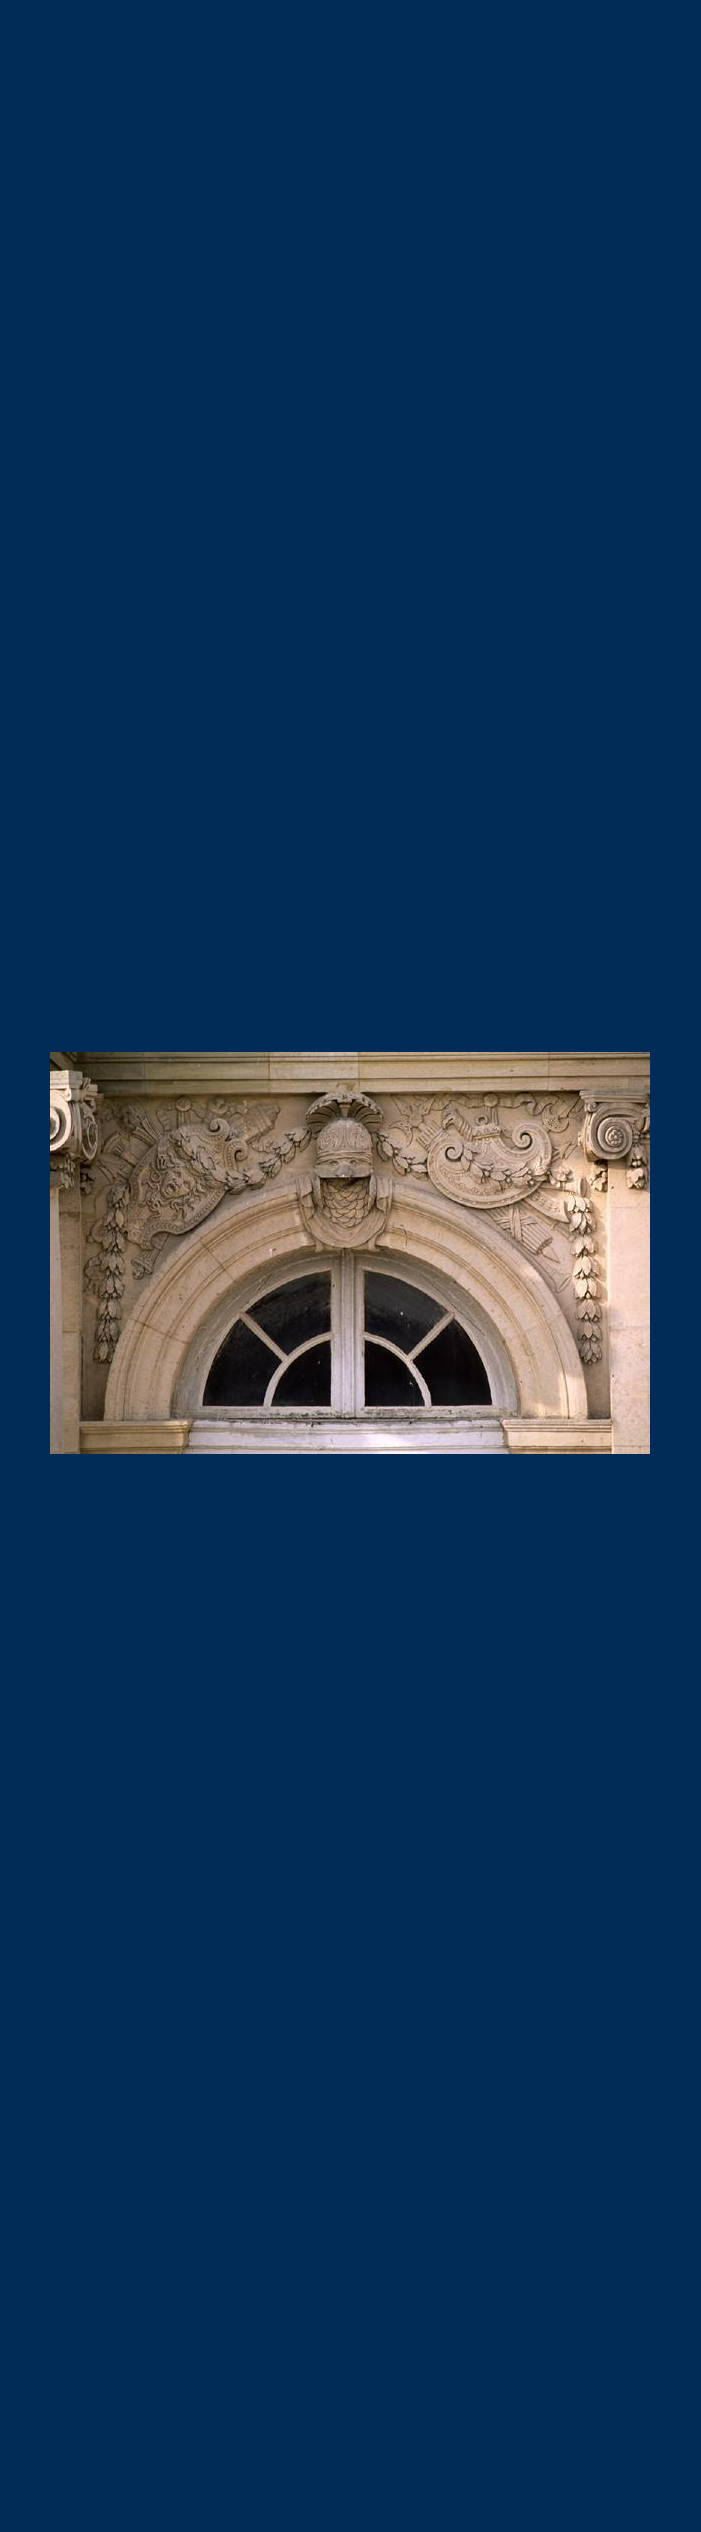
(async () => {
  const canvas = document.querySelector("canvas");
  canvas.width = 701;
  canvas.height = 2532;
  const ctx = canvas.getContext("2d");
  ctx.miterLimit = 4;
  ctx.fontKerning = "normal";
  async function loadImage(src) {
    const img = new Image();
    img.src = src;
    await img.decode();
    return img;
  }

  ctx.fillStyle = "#002c57";
  ctx.fillRect(0, 0, 701, 2532);
  ctx.drawImage(await loadImage("img/1.png"), 50, 1052, 600, 402);
})();
